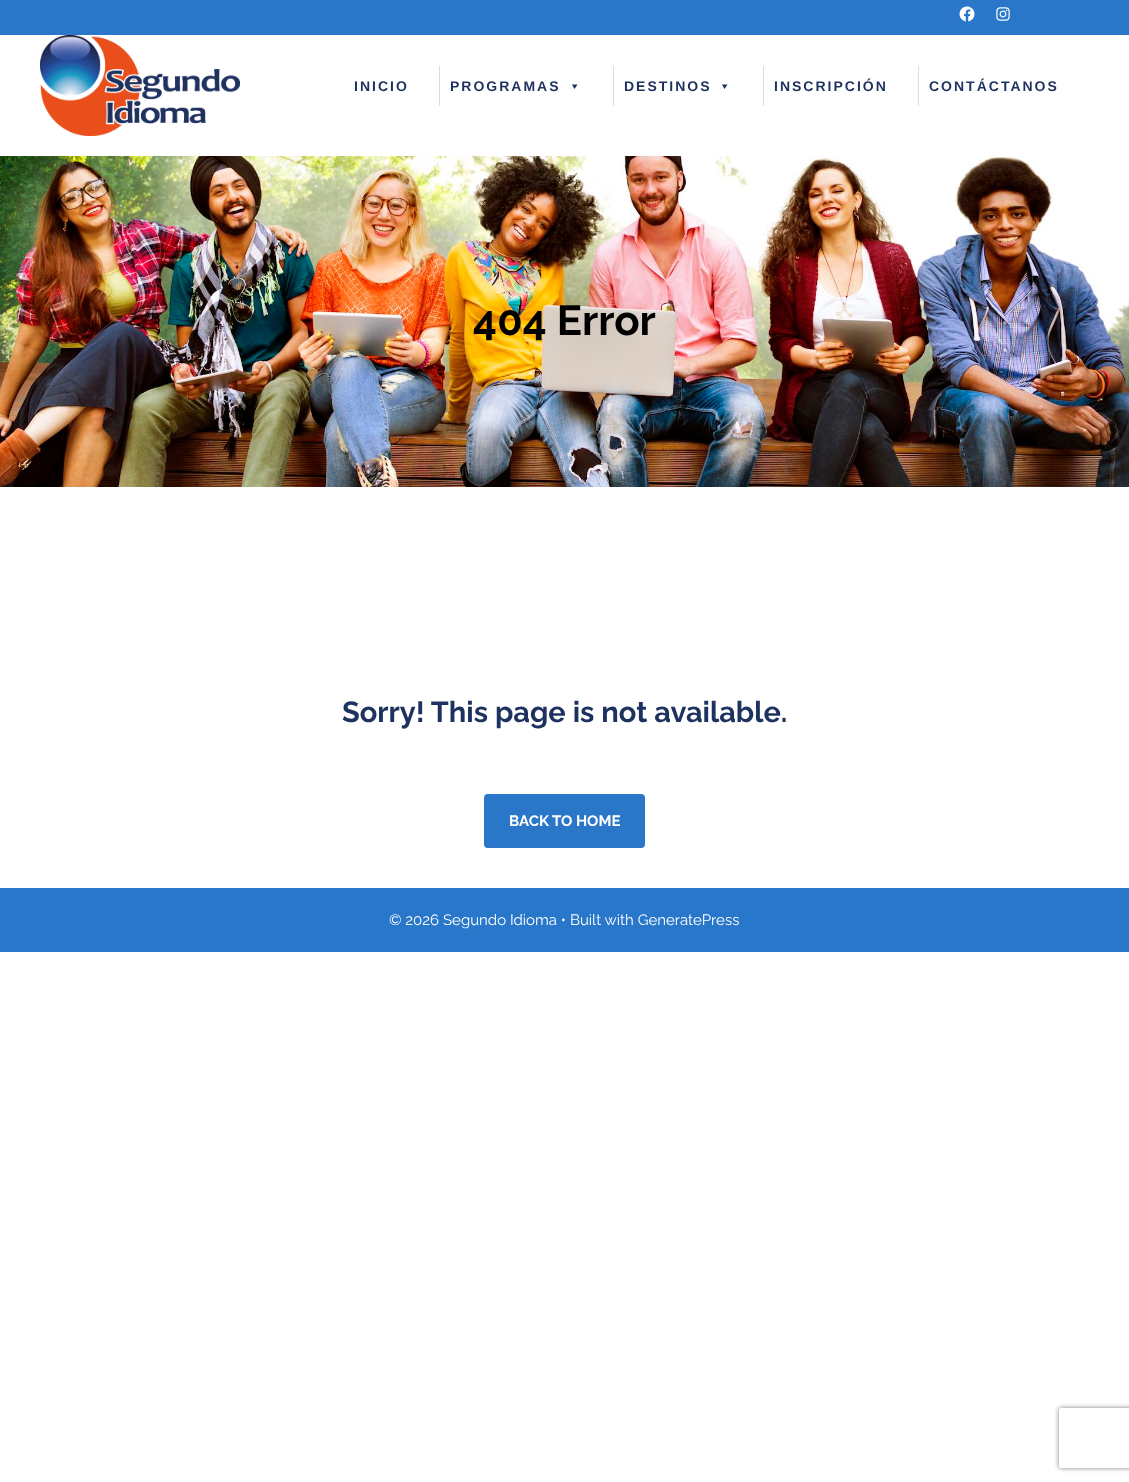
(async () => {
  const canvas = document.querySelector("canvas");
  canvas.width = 1129;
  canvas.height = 1482;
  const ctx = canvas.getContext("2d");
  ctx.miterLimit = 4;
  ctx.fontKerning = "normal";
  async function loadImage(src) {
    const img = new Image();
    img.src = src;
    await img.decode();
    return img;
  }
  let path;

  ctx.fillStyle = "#ffffff";
  ctx.fillRect(0, 0, 1129, 1482);
  ctx.fillStyle = "#2a77ca";
  ctx.fillRect(0, 0, 1129, 35);
  ctx.drawImage(await loadImage("img/1.png"), 959, 6, 16, 16);
  ctx.drawImage(await loadImage("img/2.png"), 996, 7, 14, 14);
  ctx.drawImage(await loadImage("img/3.png"), 40, 35, 200, 101);
  ctx.fillStyle = "#dddddd";
  ctx.fillRect(439, 66, 1, 40);
  ctx.fillStyle = "#1e325f";
  path = new Path2D("M577.5 84.5L574.5 89L572 84.5Z");
  ctx.fill(path);
  ctx.fillStyle = "#dddddd";
  ctx.fillRect(613, 66, 1, 40);
  ctx.fillStyle = "#1e325f";
  path = new Path2D("M727.5 84.5L724.5 89L722 84.5Z");
  ctx.fill(path);
  ctx.fillStyle = "#dddddd";
  ctx.fillRect(763, 66, 1, 40);
  ctx.fillRect(918, 66, 1, 40);
  ctx.drawImage(await loadImage("img/4.png"), 0, 156, 1129, 331);
  ctx.fillStyle = "#2a77ca";
  ctx.beginPath();
  ctx.roundRect(484, 794, 161, 54, 4);
  ctx.fill();
  ctx.fillStyle = "#2977ca";
  ctx.fillRect(0, 888, 1129, 64);
  ctx.save();
  path = new Path2D("M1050 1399H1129V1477H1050ZM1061 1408H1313C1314 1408 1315 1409 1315 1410V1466C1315 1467 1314 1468 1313 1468H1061C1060 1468 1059 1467 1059 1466V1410C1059 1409 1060 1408 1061 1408Z");
  ctx.clip(path, "evenodd");
  ctx.fillStyle = "#808080";
  ctx.filter = "blur(2.5px)";
  ctx.beginPath();
  ctx.roundRect(1059, 1408, 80, 60, 2);
  ctx.fill();
  ctx.filter = "none";
  ctx.restore();
  ctx.letterSpacing = "2px";
  ctx.font = "bold 14px Liberation Sans";
  ctx.fillStyle = "#1e325f";
  for (const [text, x, y] of [
    ["INICIO", 354, 91],
    ["PROGRAMAS", 450, 91],
    ["DESTINOS", 624, 91],
    ["INSCRIPCIÓN", 774, 91],
    ["CONTÁCTANOS", 929, 91],
  ]) {
    ctx.fillText(text, x, y);
  }
  ctx.letterSpacing = "0px";
  ctx.font = "bold 42px Raleway";
  ctx.fillStyle = "#000000";
  ctx.fillText("404 Error", 473, 335);
  ctx.font = "bold 29px Raleway";
  ctx.fillStyle = "#1e325f";
  ctx.fillText("Sorry! This page is not available.", 342, 722);
  ctx.font = "bold 15px Raleway";
  ctx.fillStyle = "#ffffff";
  ctx.fillText("BACK TO HOME", 509, 826);
  ctx.font = "15px Raleway";
  ctx.fillText("© 2026 Segundo Idioma • Built with GeneratePress", 389, 925);
})();
